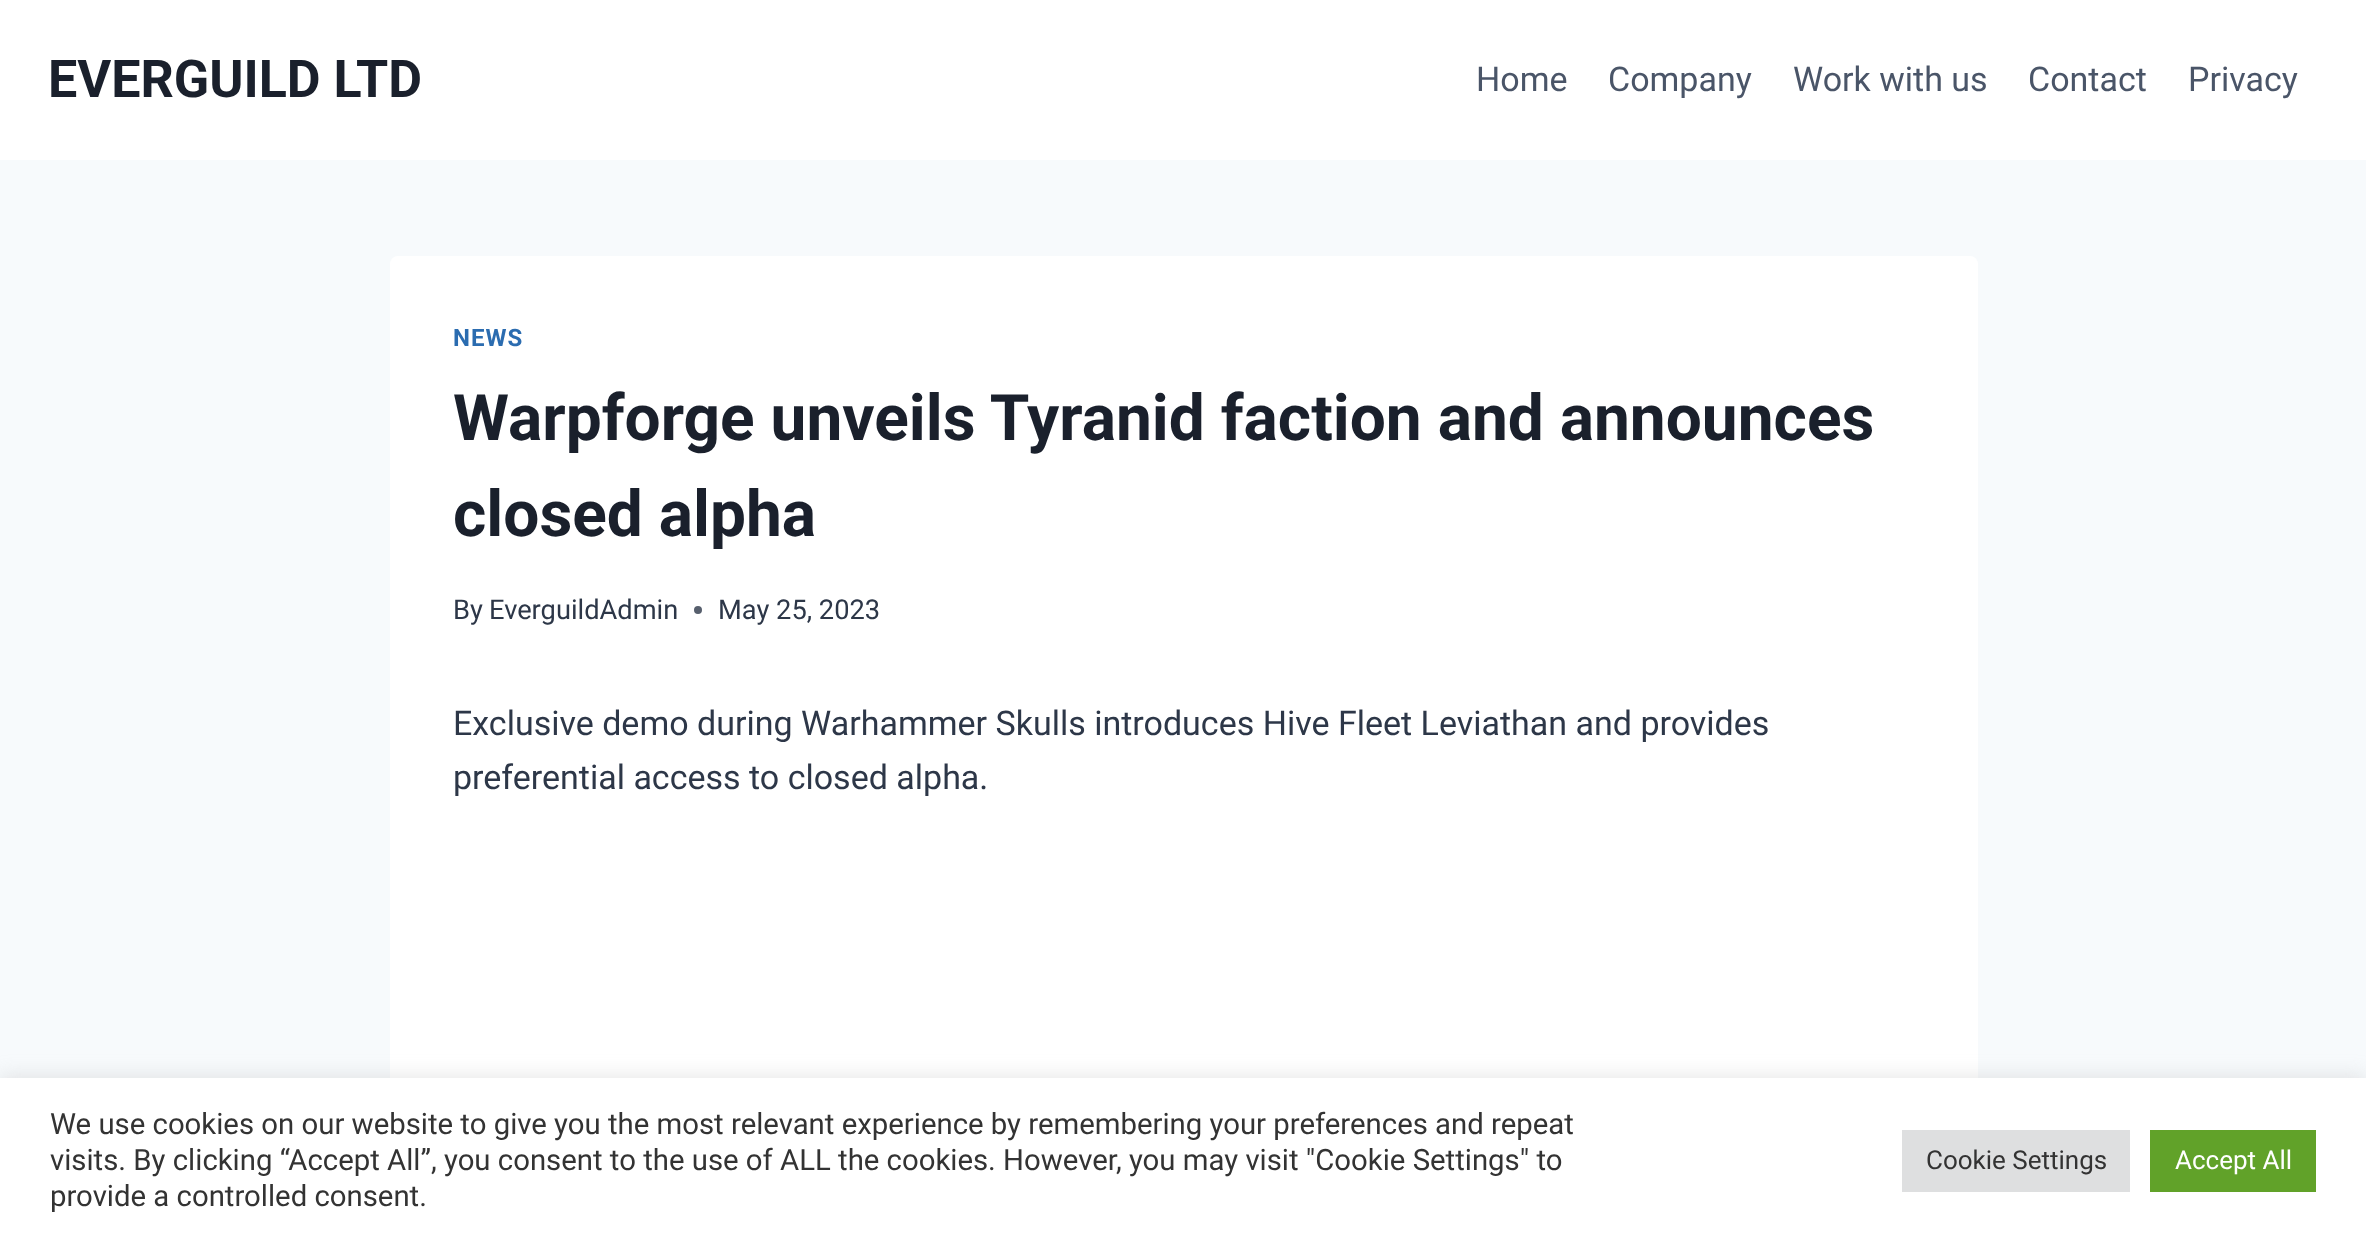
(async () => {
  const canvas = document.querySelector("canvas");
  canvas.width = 2366;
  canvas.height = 1242;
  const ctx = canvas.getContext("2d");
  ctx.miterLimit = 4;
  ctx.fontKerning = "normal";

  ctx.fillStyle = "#f7fafc";
  ctx.fillRect(0, 0, 2366, 1242);
  ctx.fillStyle = "#ffffff";
  ctx.fillRect(0, 0, 2366, 160);
  ctx.beginPath();
  ctx.roundRect(390, 256, 1588, 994, 8);
  ctx.fill();
  ctx.fillStyle = "#575f6d";
  ctx.beginPath();
  ctx.arc(698, 610, 4, 0, Math.PI * 2);
  ctx.fill();
  ctx.fillStyle = "rgba(172, 171, 171, 0.3)";
  ctx.filter = "blur(10px)";
  ctx.beginPath();
  ctx.rect(0, 1076, 2366, 164);
  ctx.fill();
  ctx.filter = "none";
  for (const [x, y, w, h, color] of [
    [0, 1078, 2366, 164, "#ffffff"],
    [1902, 1130, 228, 62, "#dedfe0"],
    [2150, 1130, 166, 62, "#61a229"],
  ]) {
    ctx.fillStyle = color;
    ctx.fillRect(x, y, w, h);
  }
  ctx.font = "bold 52px Roboto";
  ctx.fillStyle = "#1a202c";
  ctx.fillText("EVERGUILD LTD", 48, 97);
  ctx.font = "34px Roboto";
  ctx.fillStyle = "#4a5568";
  for (const [text, x, y] of [
    ["Home", 1476, 91],
    ["Company", 1608, 91],
    ["Work with us", 1793, 91],
    ["Contact", 2028, 91],
    ["Privacy", 2188, 91],
  ]) {
    ctx.fillText(text, x, y);
  }
  ctx.letterSpacing = "1px";
  ctx.font = "bold 24px Roboto";
  ctx.fillStyle = "#2b6cb0";
  ctx.fillText("NEWS", 453, 346);
  ctx.letterSpacing = "0px";
  ctx.font = "bold 64px Roboto";
  ctx.fillStyle = "#1a202c";
  ctx.fillText("Warpforge unveils Tyranid faction and announces", 453, 440);
  ctx.fillText("closed alpha", 453, 536);
  ctx.font = "27.25px Roboto";
  ctx.fillStyle = "#2d3748";
  for (const [text, x, y] of [
    ["By", 453, 619],
    ["EverguildAdmin", 489, 619],
    ["May 25, 2023", 718, 619],
  ]) {
    ctx.fillText(text, x, y);
  }
  ctx.font = "34px Roboto";
  ctx.fillText("Exclusive demo during Warhammer Skulls introduces Hive Fleet Leviathan and provides", 453, 735);
  ctx.fillText("preferential access to closed alpha.", 453, 789);
  ctx.font = "29.33px Roboto";
  ctx.fillStyle = "#333333";
  for (const [text, x, y] of [
    ["We use cookies on our website to give you the most relevant experience by remembering your preferences and repeat", 50, 1134],
    ["visits. By clicking “Accept All”, you consent to the use of ALL the cookies. However, you may visit \"Cookie Settings\" to", 50, 1170],
    ["provide a controlled consent.", 50, 1206],
  ]) {
    ctx.fillText(text, x, y);
  }
  ctx.font = "26px Roboto";
  ctx.fillText("Cookie Settings", 1926, 1169);
  ctx.fillStyle = "#ffffff";
  ctx.fillText("Accept All", 2175, 1169);
})();
